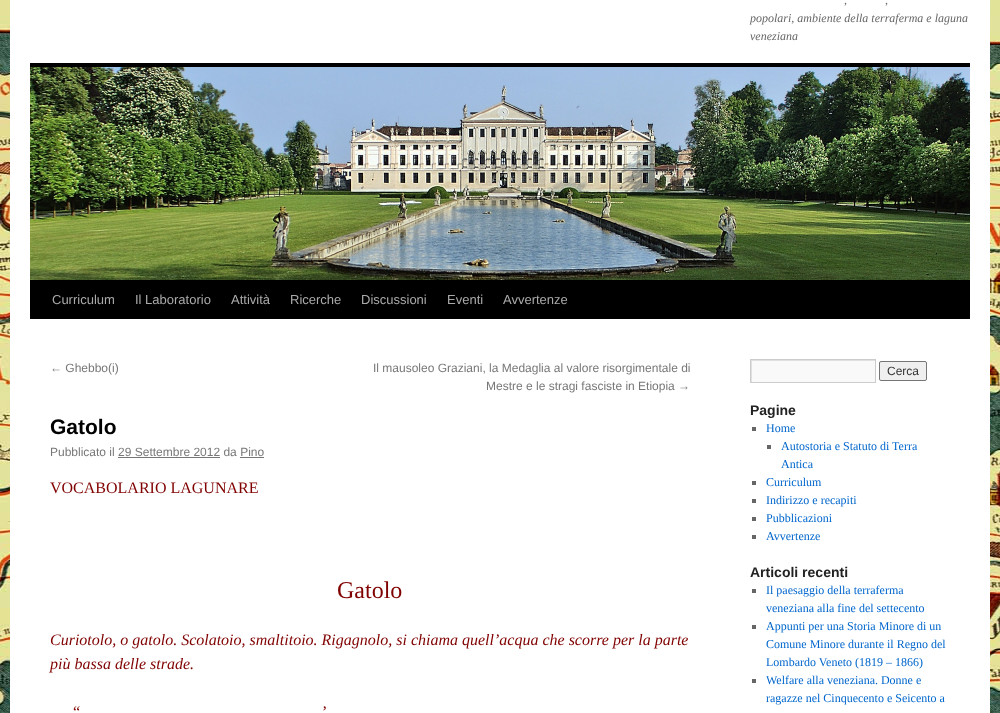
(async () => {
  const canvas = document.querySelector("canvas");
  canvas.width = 1000;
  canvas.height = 713;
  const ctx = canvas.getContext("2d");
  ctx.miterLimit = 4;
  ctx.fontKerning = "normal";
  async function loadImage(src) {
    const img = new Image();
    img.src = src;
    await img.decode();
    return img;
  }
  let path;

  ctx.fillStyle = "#ffffff";
  ctx.fillRect(0, 0, 1000, 713);
  ctx.drawImage(await loadImage("img/1.png"), 0, 0, 1000, 713);
  for (const [x, y, w, h, color] of [
    [10, 0, 980, 713, "#ffffff"],
    [30, 63, 940, 4, "#000000"],
    [30, 280, 940, 39, "#000000"],
  ]) {
    ctx.fillStyle = color;
    ctx.fillRect(x, y, w, h);
  }
  ctx.drawImage(await loadImage("img/2.png"), 30, 67, 940, 213);
  for (const [x, y, w, h, color] of [
    [118, 457, 102, 1, "#777777"],
    [240, 457, 24, 1, "#777777"],
    [752, 361, 123, 21, "#f9f9f9"],
  ]) {
    ctx.fillStyle = color;
    ctx.fillRect(x, y, w, h);
  }
  ctx.save();
  ctx.beginPath();
  ctx.rect(751, 360, 124, 22);
  ctx.clip();
  ctx.fillStyle = "#e0e0e0";
  path = new Path2D("M652 261H974V481H652ZM752 361H876V383H752Z");
  ctx.fill(path, "evenodd");
  ctx.restore();
  ctx.strokeStyle = "#cccccc";
  ctx.strokeRect(750.5, 359.5, 125, 23);
  ctx.fillStyle = "#efefef";
  ctx.beginPath();
  ctx.roundRect(879.5, 361.5, 47, 19, 1.5);
  ctx.fill();
  ctx.strokeStyle = "#767676";
  ctx.stroke();
  for (const [x, y, w, h, color] of [
    [752, 427, 4, 4, "#666666"],
    [767, 445, 4, 4, "#666666"],
    [752, 481, 4, 4, "#666666"],
    [752, 499, 4, 4, "#666666"],
    [752, 517, 4, 4, "#666666"],
    [752, 535, 4, 4, "#666666"],
    [752, 589, 4, 4, "#666666"],
    [752, 625, 4, 4, "#666666"],
    [752, 679, 4, 4, "#666666"],
  ]) {
    ctx.fillStyle = color;
    ctx.fillRect(x, y, w, h);
  }
  ctx.font = "italic 12px Liberation Serif";
  for (const [text, x, y] of [
    [",", 844, 4],
    [",", 885, 4],
    ["popolari, ambiente della terraferma e laguna", 750, 22],
    ["veneziana", 750, 40],
  ]) {
    ctx.fillText(text, x, y);
  }
  ctx.font = "13px Liberation Sans";
  ctx.fillStyle = "#aaaaaa";
  for (const [text, x, y] of [
    ["Curriculum", 52, 304],
    ["Il Laboratorio", 135, 304],
    ["Attività", 231, 304],
    ["Ricerche", 290, 304],
    ["Discussioni", 361, 304],
    ["Eventi", 447, 304],
    ["Avvertenze", 503, 304],
  ]) {
    ctx.fillText(text, x, y);
  }
  ctx.font = "12px Liberation Sans";
  ctx.fillStyle = "#777777";
  for (const [text, x, y] of [
    ["← Ghebbo(i)", 50, 372],
    ["Il mausoleo Graziani, la Medaglia al valore risorgimentale di", 373, 372],
    ["Mestre e le stragi fasciste in Etiopia →", 486, 390],
  ]) {
    ctx.fillText(text, x, y);
  }
  ctx.font = "bold 21px Liberation Sans";
  ctx.fillStyle = "#000000";
  ctx.fillText("Gatolo", 50, 434);
  ctx.font = "12px Liberation Sans";
  ctx.fillStyle = "#777777";
  ctx.fillText("Pubblicato il 29 Settembre 2012 da Pino", 50, 456);
  ctx.font = "16px Liberation Serif";
  ctx.fillStyle = "#800000";
  ctx.fillText("VOCABOLARIO LAGUNARE", 50, 493);
  ctx.font = "24px Liberation Serif";
  ctx.fillText("Gatolo", 337, 598);
  ctx.font = "italic 16px Liberation Serif";
  ctx.fillText("Curiotolo, o gatolo. Scolatoio, smaltitoio. Rigagnolo, si chiama quell’acqua che scorre per la parte", 50, 645);
  ctx.fillText("più bassa delle strade.", 50, 669);
  ctx.font = "16px Liberation Serif";
  ctx.fillText("“", 73, 717);
  ctx.fillText("’", 322, 717);
  ctx.font = "12px Liberation Sans";
  ctx.fillStyle = "#333333";
  ctx.fillText("Cerca", 887, 375);
  ctx.font = "bold 14px Liberation Sans";
  ctx.fillStyle = "#222222";
  ctx.fillText("Pagine", 750, 415);
  ctx.font = "12px Liberation Serif";
  ctx.fillStyle = "#0066cc";
  for (const [text, x, y] of [
    ["Home", 766, 432],
    ["Autostoria e Statuto di Terra", 781, 450],
    ["Antica", 781, 468],
    ["Curriculum", 766, 486],
    ["Indirizzo e recapiti", 766, 504],
    ["Pubblicazioni", 766, 522],
    ["Avvertenze", 766, 540],
  ]) {
    ctx.fillText(text, x, y);
  }
  ctx.font = "bold 14px Liberation Sans";
  ctx.fillStyle = "#222222";
  ctx.fillText("Articoli recenti", 750, 577);
  ctx.font = "12px Liberation Serif";
  ctx.fillStyle = "#0066cc";
  for (const [text, x, y] of [
    ["Il paesaggio della terraferma", 766, 594],
    ["veneziana alla fine del settecento", 766, 612],
    ["Appunti per una Storia Minore di un", 766, 630],
    ["Comune Minore durante il Regno del", 766, 648],
    ["Lombardo Veneto (1819 – 1866)", 766, 666],
    ["Welfare alla veneziana. Donne e", 766, 684],
    ["ragazze nel Cinquecento e Seicento a", 766, 702],
  ]) {
    ctx.fillText(text, x, y);
  }
})();
